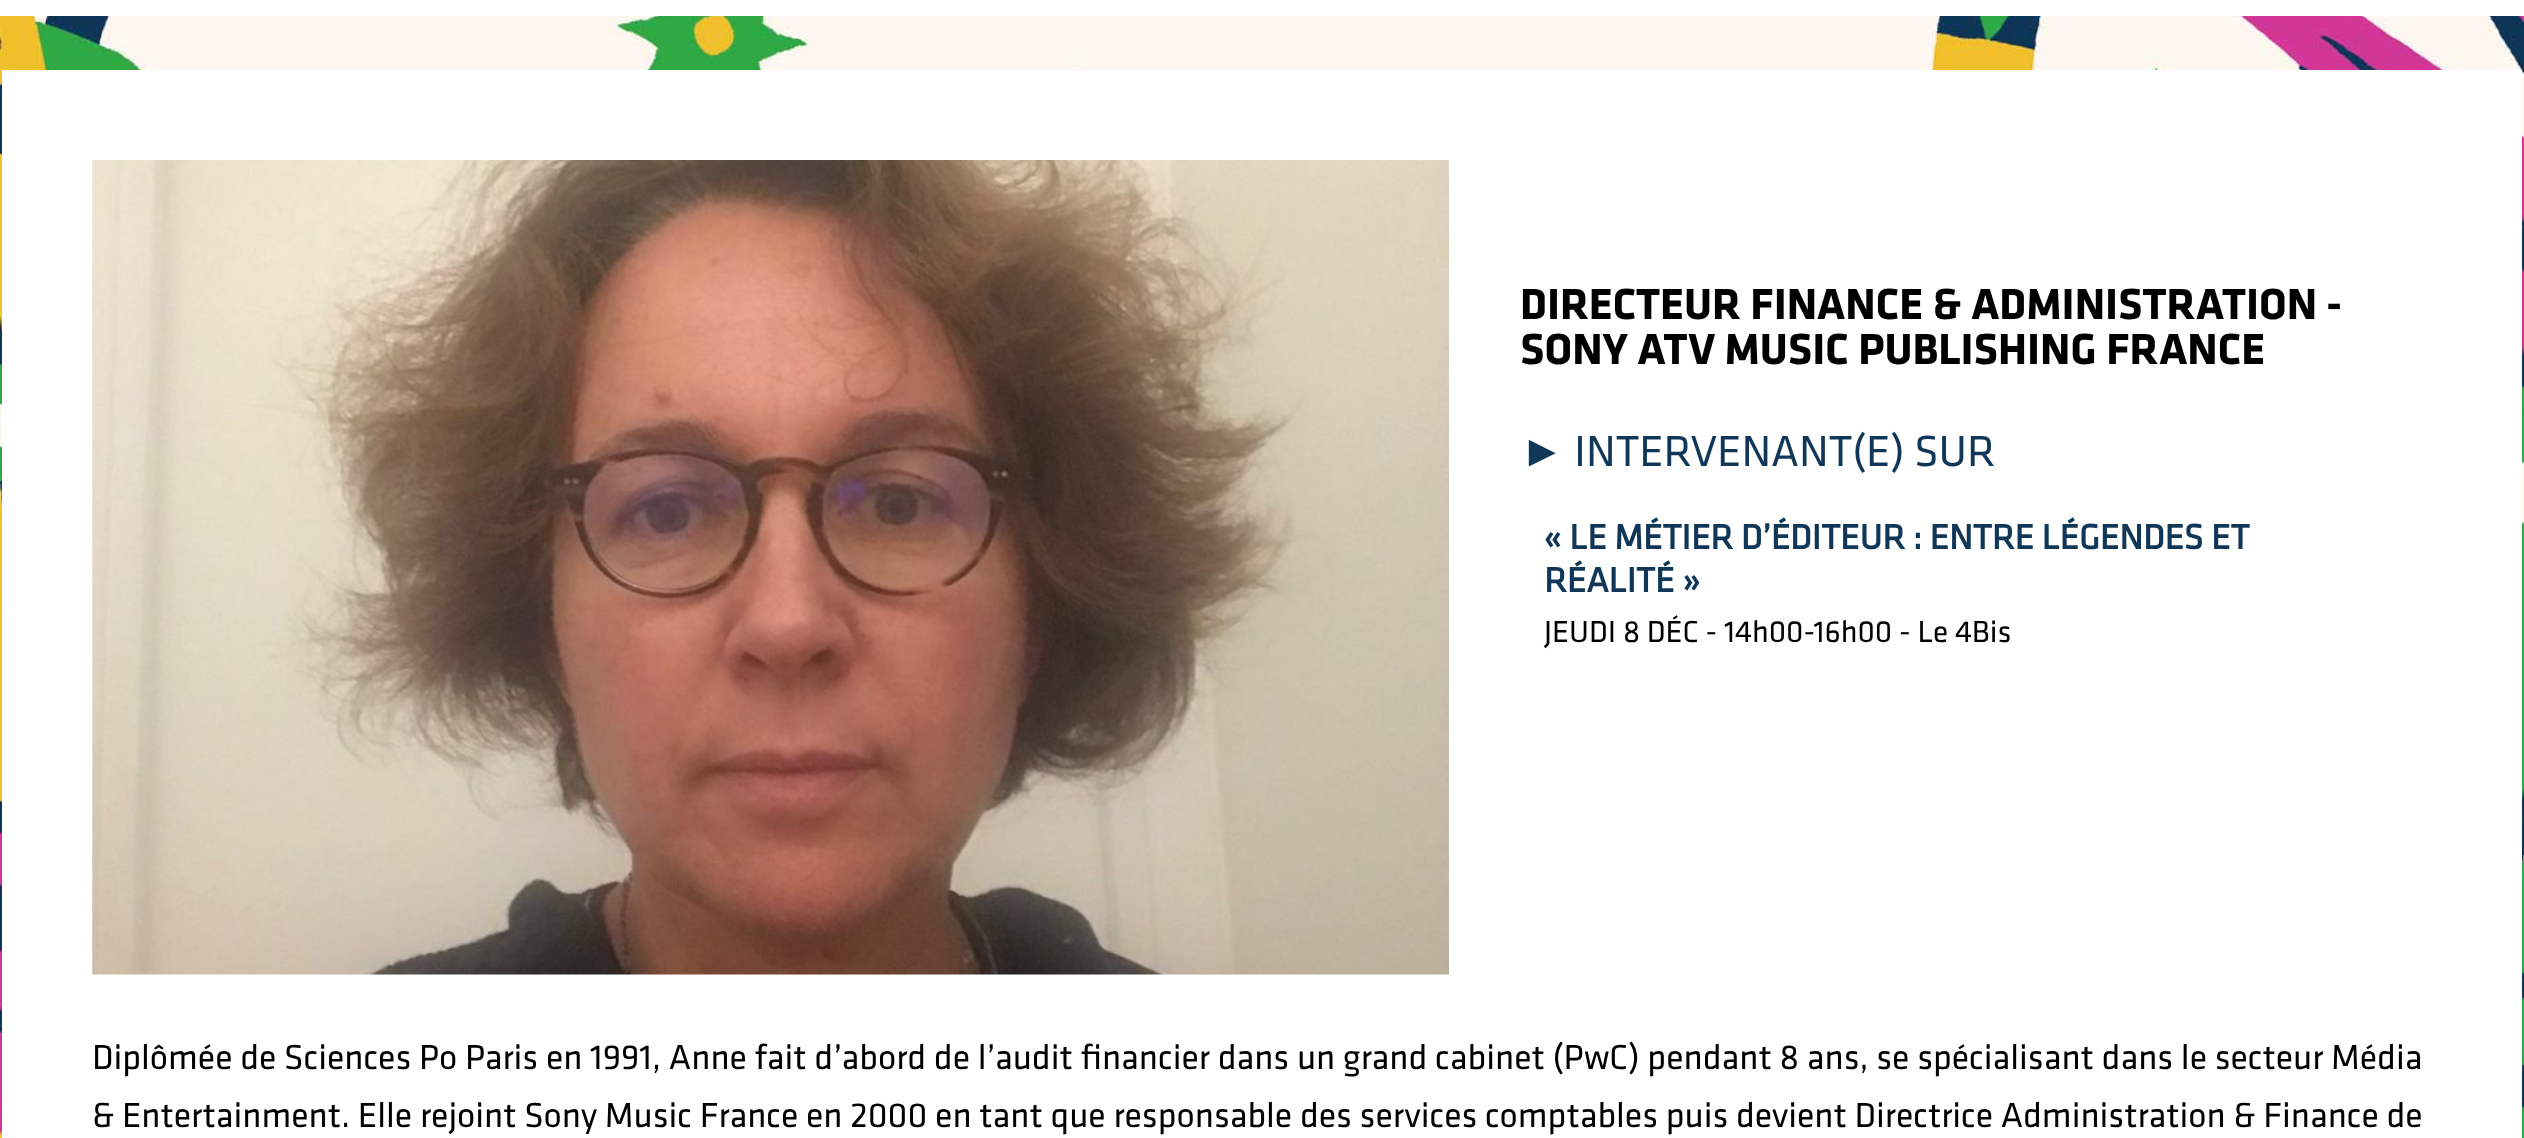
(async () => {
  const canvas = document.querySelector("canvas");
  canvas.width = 2524;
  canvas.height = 1138;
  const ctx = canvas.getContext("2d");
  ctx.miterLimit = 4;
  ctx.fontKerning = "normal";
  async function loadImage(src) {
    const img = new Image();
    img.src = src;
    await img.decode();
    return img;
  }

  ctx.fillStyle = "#ffffff";
  ctx.fillRect(0, 0, 2524, 1138);
  ctx.drawImage(await loadImage("img/1.png"), 0, 16, 2524, 1122);
  ctx.fillRect(2, 70, 2520, 1068);
  ctx.drawImage(await loadImage("img/2.png"), 92, 160, 1357, 815);
  ctx.font = "bold 45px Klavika";
  ctx.fillStyle = "#000000";
  ctx.fillText("DIRECTEUR FINANCE & ADMINISTRATION -", 1520, 319);
  ctx.fillText("SONY ATV MUSIC PUBLISHING FRANCE", 1520, 364);
  ctx.font = "45px Liberation Serif";
  ctx.fillStyle = "#103758";
  ctx.fillText("►", 1520, 466);
  ctx.font = "45px Klavika";
  ctx.fillText("INTERVENANT(E) SUR", 1574, 466);
  ctx.font = "bold 36px 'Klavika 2'";
  ctx.fillText("« LE MÉTIER D’ÉDITEUR : ENTRE LÉGENDES ET", 1544, 549);
  ctx.fillText("RÉALITÉ »", 1544, 592);
  ctx.font = "31.5px Klavika";
  ctx.fillStyle = "#000000";
  ctx.fillText("JEUDI 8 DÉC - 14h00-16h00 - Le 4Bis", 1544, 642);
  ctx.font = "36px Klavika";
  ctx.fillText("Diplômée de Sciences Po Paris en 1991, Anne fait d’abord de l’audit financier dans un grand cabinet (PwC) pendant 8 ans, se spécialisant dans le secteur Média", 92, 1069);
  ctx.fillText("& Entertainment. Elle rejoint Sony Music France en 2000 en tant que responsable des services comptables puis devient Directrice Administration & Finance de", 92, 1127);
})();
